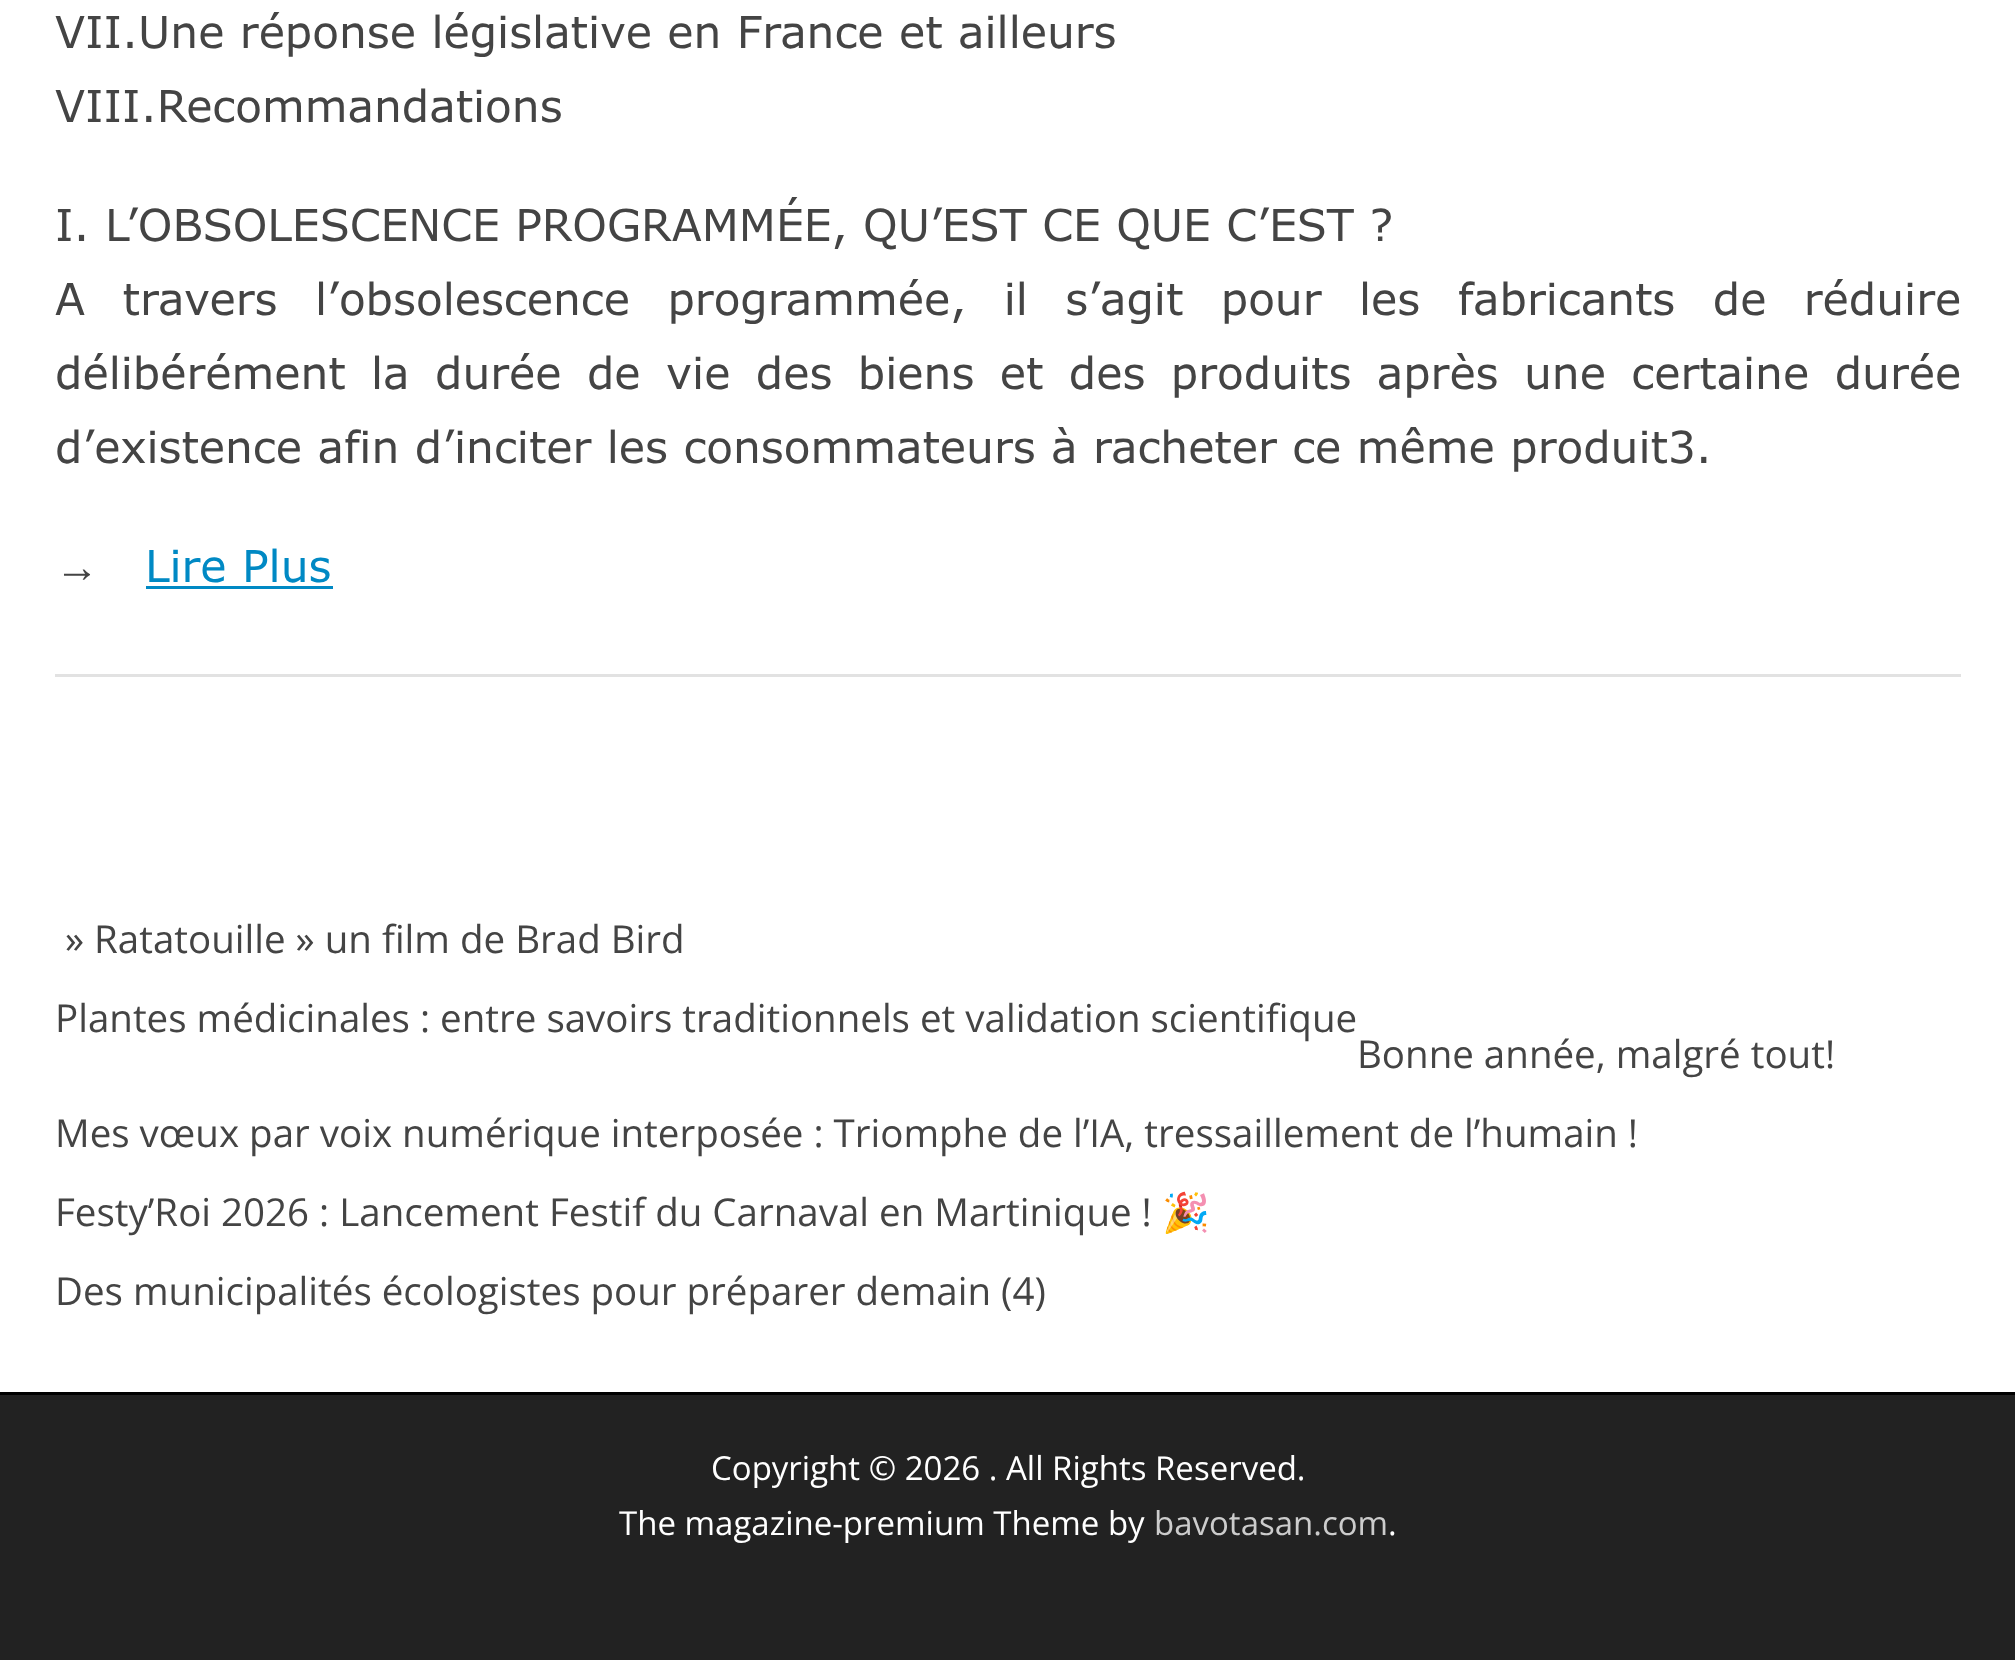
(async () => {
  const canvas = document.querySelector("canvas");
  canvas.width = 2015;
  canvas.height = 1660;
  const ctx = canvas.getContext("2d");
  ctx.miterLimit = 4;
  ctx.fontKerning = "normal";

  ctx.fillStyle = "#ffffff";
  ctx.fillRect(0, 0, 2015, 1660);
  for (const [x, y, w, h, color] of [
    [55, 674, 1906, 3, "#e2e2e2"],
    [146, 586, 187, 3, "#0089c4"],
    [0, 1395, 2015, 265, "#222222"],
    [0, 1392, 2015, 3, "#000000"],
  ]) {
    ctx.fillStyle = color;
    ctx.fillRect(x, y, w, h);
  }
  ctx.font = "44px Verdana";
  ctx.fillStyle = "#444444";
  for (const [text, x, y] of [
    ["VII.Une réponse législative en France et ailleurs", 55, 48],
    ["VIII.Recommandations", 55, 122],
    ["I. L’OBSOLESCENCE PROGRAMMÉE, QU’EST CE QUE C’EST ?", 55, 241],
  ]) {
    ctx.fillText(text, x, y);
  }
  ctx.wordSpacing = "22px";
  ctx.fillText("A travers l’obsolescence programmée, il s’agit pour les fabricants de réduire", 55, 315);
  ctx.wordSpacing = "10px";
  ctx.fillText("délibérément la durée de vie des biens et des produits après une certaine durée", 55, 389);
  ctx.wordSpacing = "0px";
  ctx.fillText("d’existence afin d’inciter les consommateurs à racheter ce même produit3.", 55, 463);
  ctx.font = "44px Liberation Serif";
  ctx.fillText("→", 55, 582);
  ctx.font = "44px Verdana";
  ctx.fillStyle = "#0089c4";
  ctx.fillText("Lire Plus", 145, 582);
  ctx.font = "38.5px Open Sans";
  ctx.fillStyle = "#444444";
  for (const [text, x, y] of [
    ["» Ratatouille » un film de Brad Bird", 65, 953],
    ["Plantes médicinales : entre savoirs traditionnels et validation scientifique", 55, 1032],
    ["Bonne année, malgré tout!", 1357, 1068],
    ["Mes vœux par voix numérique interposée : Triomphe de l’IA, tressaillement de l’humain !", 55, 1147],
    ["Festy’Roi 2026 : Lancement Festif du Carnaval en Martinique !", 55, 1226],
  ]) {
    ctx.fillText(text, x, y);
  }
  ctx.font = "38.5px Noto Color Emoji";
  ctx.fillText("🎉", 1162, 1226);
  ctx.font = "38.5px Open Sans";
  ctx.fillText("Des municipalités écologistes pour préparer demain (4)", 55, 1305);
  ctx.font = "33px Open Sans";
  ctx.fillStyle = "#ffffff";
  ctx.fillText("Copyright © 2026 . All Rights Reserved.", 711, 1480);
  ctx.fillText("The magazine-premium Theme by", 619, 1535);
  ctx.fillStyle = "#cccccc";
  ctx.fillText("bavotasan.com", 1154, 1535);
  ctx.fillStyle = "#ffffff";
  ctx.fillText(".", 1388, 1535);
})();
